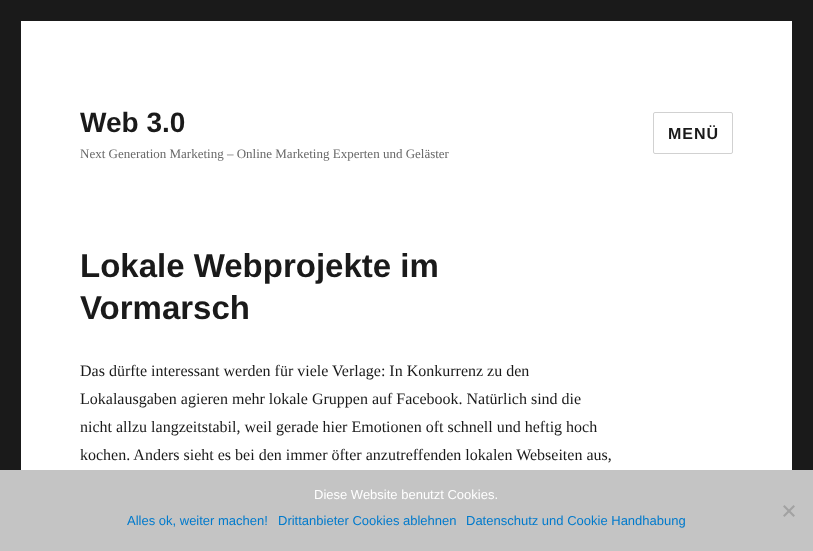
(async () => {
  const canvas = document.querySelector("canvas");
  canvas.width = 813;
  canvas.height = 551;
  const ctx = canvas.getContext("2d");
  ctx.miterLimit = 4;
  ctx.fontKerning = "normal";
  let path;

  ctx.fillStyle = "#1a1a1a";
  ctx.fillRect(0, 0, 813, 551);
  ctx.fillStyle = "#ffffff";
  ctx.fillRect(21, 21, 771, 449);
  ctx.beginPath();
  ctx.roundRect(653.5, 112.5, 79, 41, 1.5);
  ctx.strokeStyle = "#d1d1d1";
  ctx.stroke();
  ctx.fillStyle = "#c4c4c4";
  ctx.fillRect(0, 470, 813, 81);
  ctx.fillStyle = "#a2a2a2";
  path = new Path2D("M793.5 505L795 506.5L784.5 517L783 515.5Z");
  ctx.fill(path);
  path = new Path2D("M783 506.5L784.5 505L795 515.5L793.5 517Z");
  ctx.fill(path);
  ctx.font = "bold 28px Liberation Sans";
  ctx.fillStyle = "#1a1a1a";
  ctx.fillText("Web 3.0", 80, 132);
  ctx.font = "13px Liberation Serif";
  ctx.fillStyle = "#686868";
  ctx.fillText("Next Generation Marketing – Online Marketing Experten und Geläster", 80, 158);
  ctx.letterSpacing = "1px";
  ctx.font = "bold 16px Liberation Sans";
  ctx.fillStyle = "#1a1a1a";
  ctx.fillText("MENÜ", 668, 139);
  ctx.letterSpacing = "0px";
  ctx.font = "bold 33px Liberation Sans";
  ctx.fillText("Lokale Webprojekte im", 80, 277);
  ctx.fillText("Vormarsch", 80, 319);
  ctx.font = "16px Liberation Serif";
  for (const [text, x, y] of [
    ["Das dürfte interessant werden für viele Verlage: In Konkurrenz zu den", 80, 376],
    ["Lokalausgaben agieren mehr lokale Gruppen auf Facebook. Natürlich sind die", 80, 404],
    ["nicht allzu langzeitstabil, weil gerade hier Emotionen oft schnell und heftig hoch", 80, 432],
    ["kochen. Anders sieht es bei den immer öfter anzutreffenden lokalen Webseiten aus,", 80, 460],
  ]) {
    ctx.fillText(text, x, y);
  }
  ctx.font = "13px Liberation Sans";
  ctx.fillStyle = "#ffffff";
  ctx.fillText("Diese Website benutzt Cookies.", 314, 499);
  ctx.fillStyle = "#007acc";
  for (const [text, x, y] of [
    ["Alles ok, weiter machen!", 127, 525],
    ["Drittanbieter Cookies ablehnen", 278, 525],
    ["Datenschutz und Cookie Handhabung", 466, 525],
  ]) {
    ctx.fillText(text, x, y);
  }
})();
